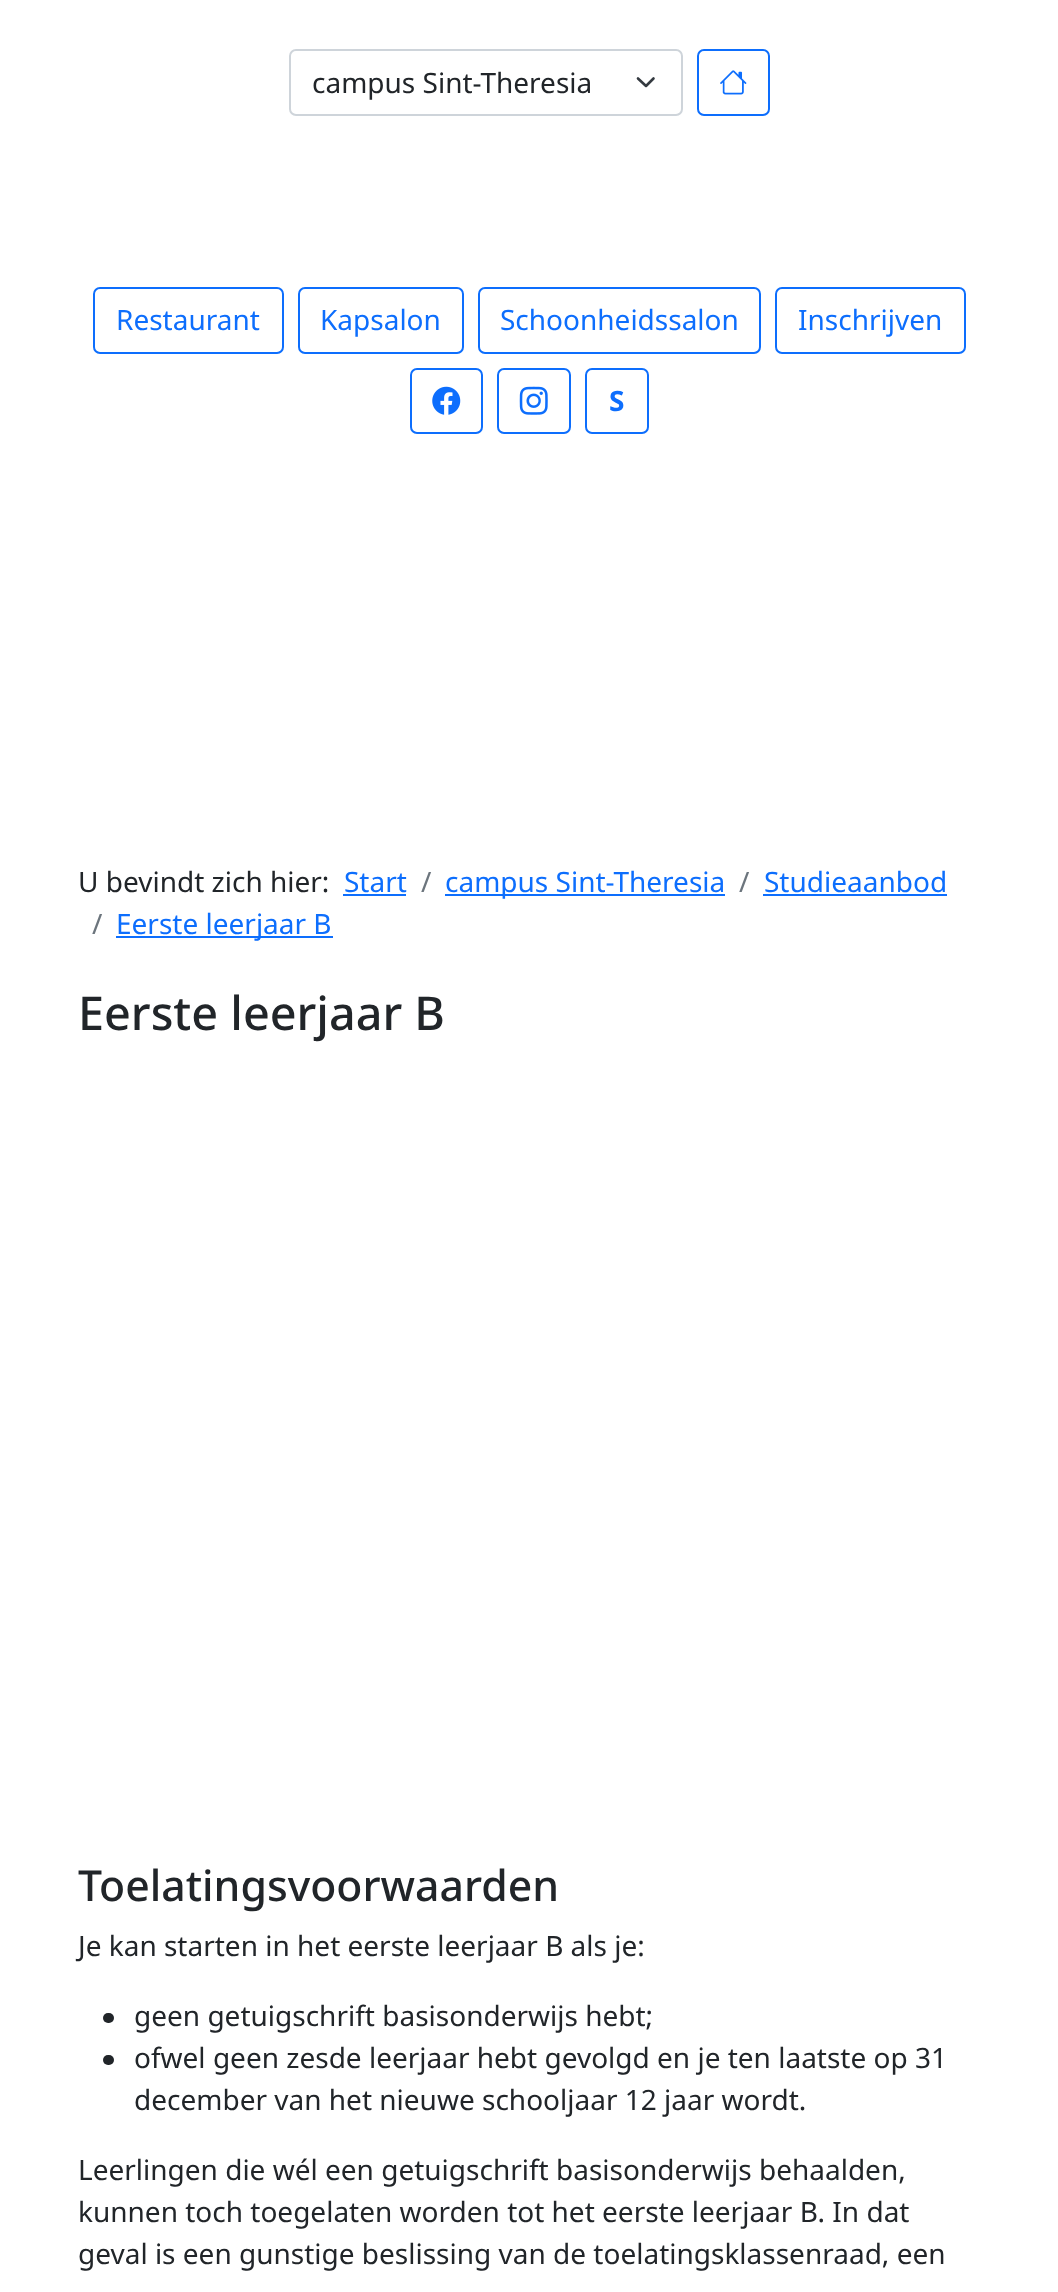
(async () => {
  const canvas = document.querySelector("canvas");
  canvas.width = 1058;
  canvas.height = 2292;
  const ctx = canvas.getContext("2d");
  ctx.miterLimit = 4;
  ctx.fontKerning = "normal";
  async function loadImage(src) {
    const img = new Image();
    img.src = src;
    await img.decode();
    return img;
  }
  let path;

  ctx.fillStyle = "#ffffff";
  ctx.fillRect(0, 0, 1058, 2292);
  path = new Path2D("M638 78.5L646 86L653.5 78.5");
  ctx.strokeStyle = "#343a40";
  ctx.lineWidth = 2.6;
  ctx.lineCap = "round";
  ctx.lineJoin = "round";
  ctx.stroke(path);
  ctx.beginPath();
  ctx.roundRect(290, 50, 392, 65, 6);
  ctx.strokeStyle = "#ced4da";
  ctx.lineWidth = 2;
  ctx.lineJoin = "miter";
  ctx.stroke();
  ctx.beginPath();
  ctx.roundRect(698, 50, 71, 65, 6);
  ctx.strokeStyle = "#0d6efd";
  ctx.stroke();
  ctx.drawImage(await loadImage("img/1.png"), 720, 70, 27, 25);
  ctx.beginPath();
  ctx.roundRect(94, 288, 189, 65, 6);
  ctx.stroke();
  ctx.beginPath();
  ctx.roundRect(299, 288, 164, 65, 6);
  ctx.stroke();
  ctx.beginPath();
  ctx.roundRect(479, 288, 281, 65, 6);
  ctx.stroke();
  ctx.beginPath();
  ctx.roundRect(776, 288, 189, 65, 6);
  ctx.stroke();
  ctx.beginPath();
  ctx.roundRect(411, 369, 71, 64, 6);
  ctx.stroke();
  ctx.drawImage(await loadImage("img/2.png"), 432, 386, 29, 29);
  ctx.beginPath();
  ctx.roundRect(498, 369, 72, 64, 6);
  ctx.stroke();
  ctx.drawImage(await loadImage("img/3.png"), 519, 386, 29, 29);
  ctx.beginPath();
  ctx.roundRect(586, 369, 62, 64, 6);
  ctx.stroke();
  for (const [x, y, w, h, color] of [
    [343, 894, 63, 2, "#0d6efd"],
    [445, 894, 280, 2, "#0d6efd"],
    [763, 894, 184, 2, "#0d6efd"],
    [116, 936, 217, 2, "#0d6efd"],
  ]) {
    ctx.fillStyle = color;
    ctx.fillRect(x, y, w, h);
  }
  ctx.fillStyle = "#212529";
  ctx.beginPath();
  ctx.roundRect(103, 2013, 11, 10, 5);
  ctx.fill();
  ctx.beginPath();
  ctx.roundRect(103, 2055, 11, 10, 5);
  ctx.fill();
  ctx.font = "28px Noto Sans";
  ctx.fillText("campus Sint-Theresia", 312, 93);
  ctx.fillStyle = "#0d6efd";
  for (const [text, x, y] of [
    ["Restaurant", 116, 330],
    ["Kapsalon", 320, 330],
    ["Schoonheidssalon", 500, 330],
    ["Inschrijven", 798, 330],
  ]) {
    ctx.fillText(text, x, y);
  }
  ctx.font = "bold 28px Noto Sans";
  ctx.fillText("S", 609, 411);
  ctx.font = "28px Noto Sans";
  ctx.fillStyle = "#212529";
  ctx.fillText("U bevindt zich hier:", 78, 892);
  ctx.fillStyle = "#0d6efd";
  ctx.fillText("Start", 344, 892);
  ctx.fillStyle = "#6c757d";
  ctx.fillText("/", 421, 892);
  ctx.fillStyle = "#0d6efd";
  ctx.fillText("campus Sint-Theresia", 445, 892);
  ctx.fillStyle = "#6c757d";
  ctx.fillText("/", 739, 892);
  ctx.fillStyle = "#0d6efd";
  ctx.fillText("Studieaanbod", 764, 892);
  ctx.fillStyle = "#6c757d";
  ctx.fillText("/", 92, 934);
  ctx.fillStyle = "#0d6efd";
  ctx.fillText("Eerste leerjaar B", 116, 934);
  ctx.font = "500 46.75px Noto Sans";
  ctx.fillStyle = "#212529";
  ctx.fillText("Eerste leerjaar B", 78, 1030);
  ctx.font = "500 42.75px Noto Sans";
  ctx.fillText("Toelatingsvoorwaarden", 78, 1901);
  ctx.font = "28px Noto Sans";
  for (const [text, x, y] of [
    ["Je kan starten in het eerste leerjaar B als je:", 78, 1956],
    ["geen getuigschrift basisonderwijs hebt;", 134, 2026],
    ["ofwel geen zesde leerjaar hebt gevolgd en je ten laatste op 31", 134, 2068],
    ["december van het nieuwe schooljaar 12 jaar wordt.", 134, 2110],
    ["Leerlingen die wél een getuigschrift basisonderwijs behaalden,", 78, 2180],
    ["kunnen toch toegelaten worden tot het eerste leerjaar B. In dat", 78, 2222],
    ["geval is een gunstige beslissing van de toelatingsklassenraad, een", 78, 2264],
  ]) {
    ctx.fillText(text, x, y);
  }
})();
